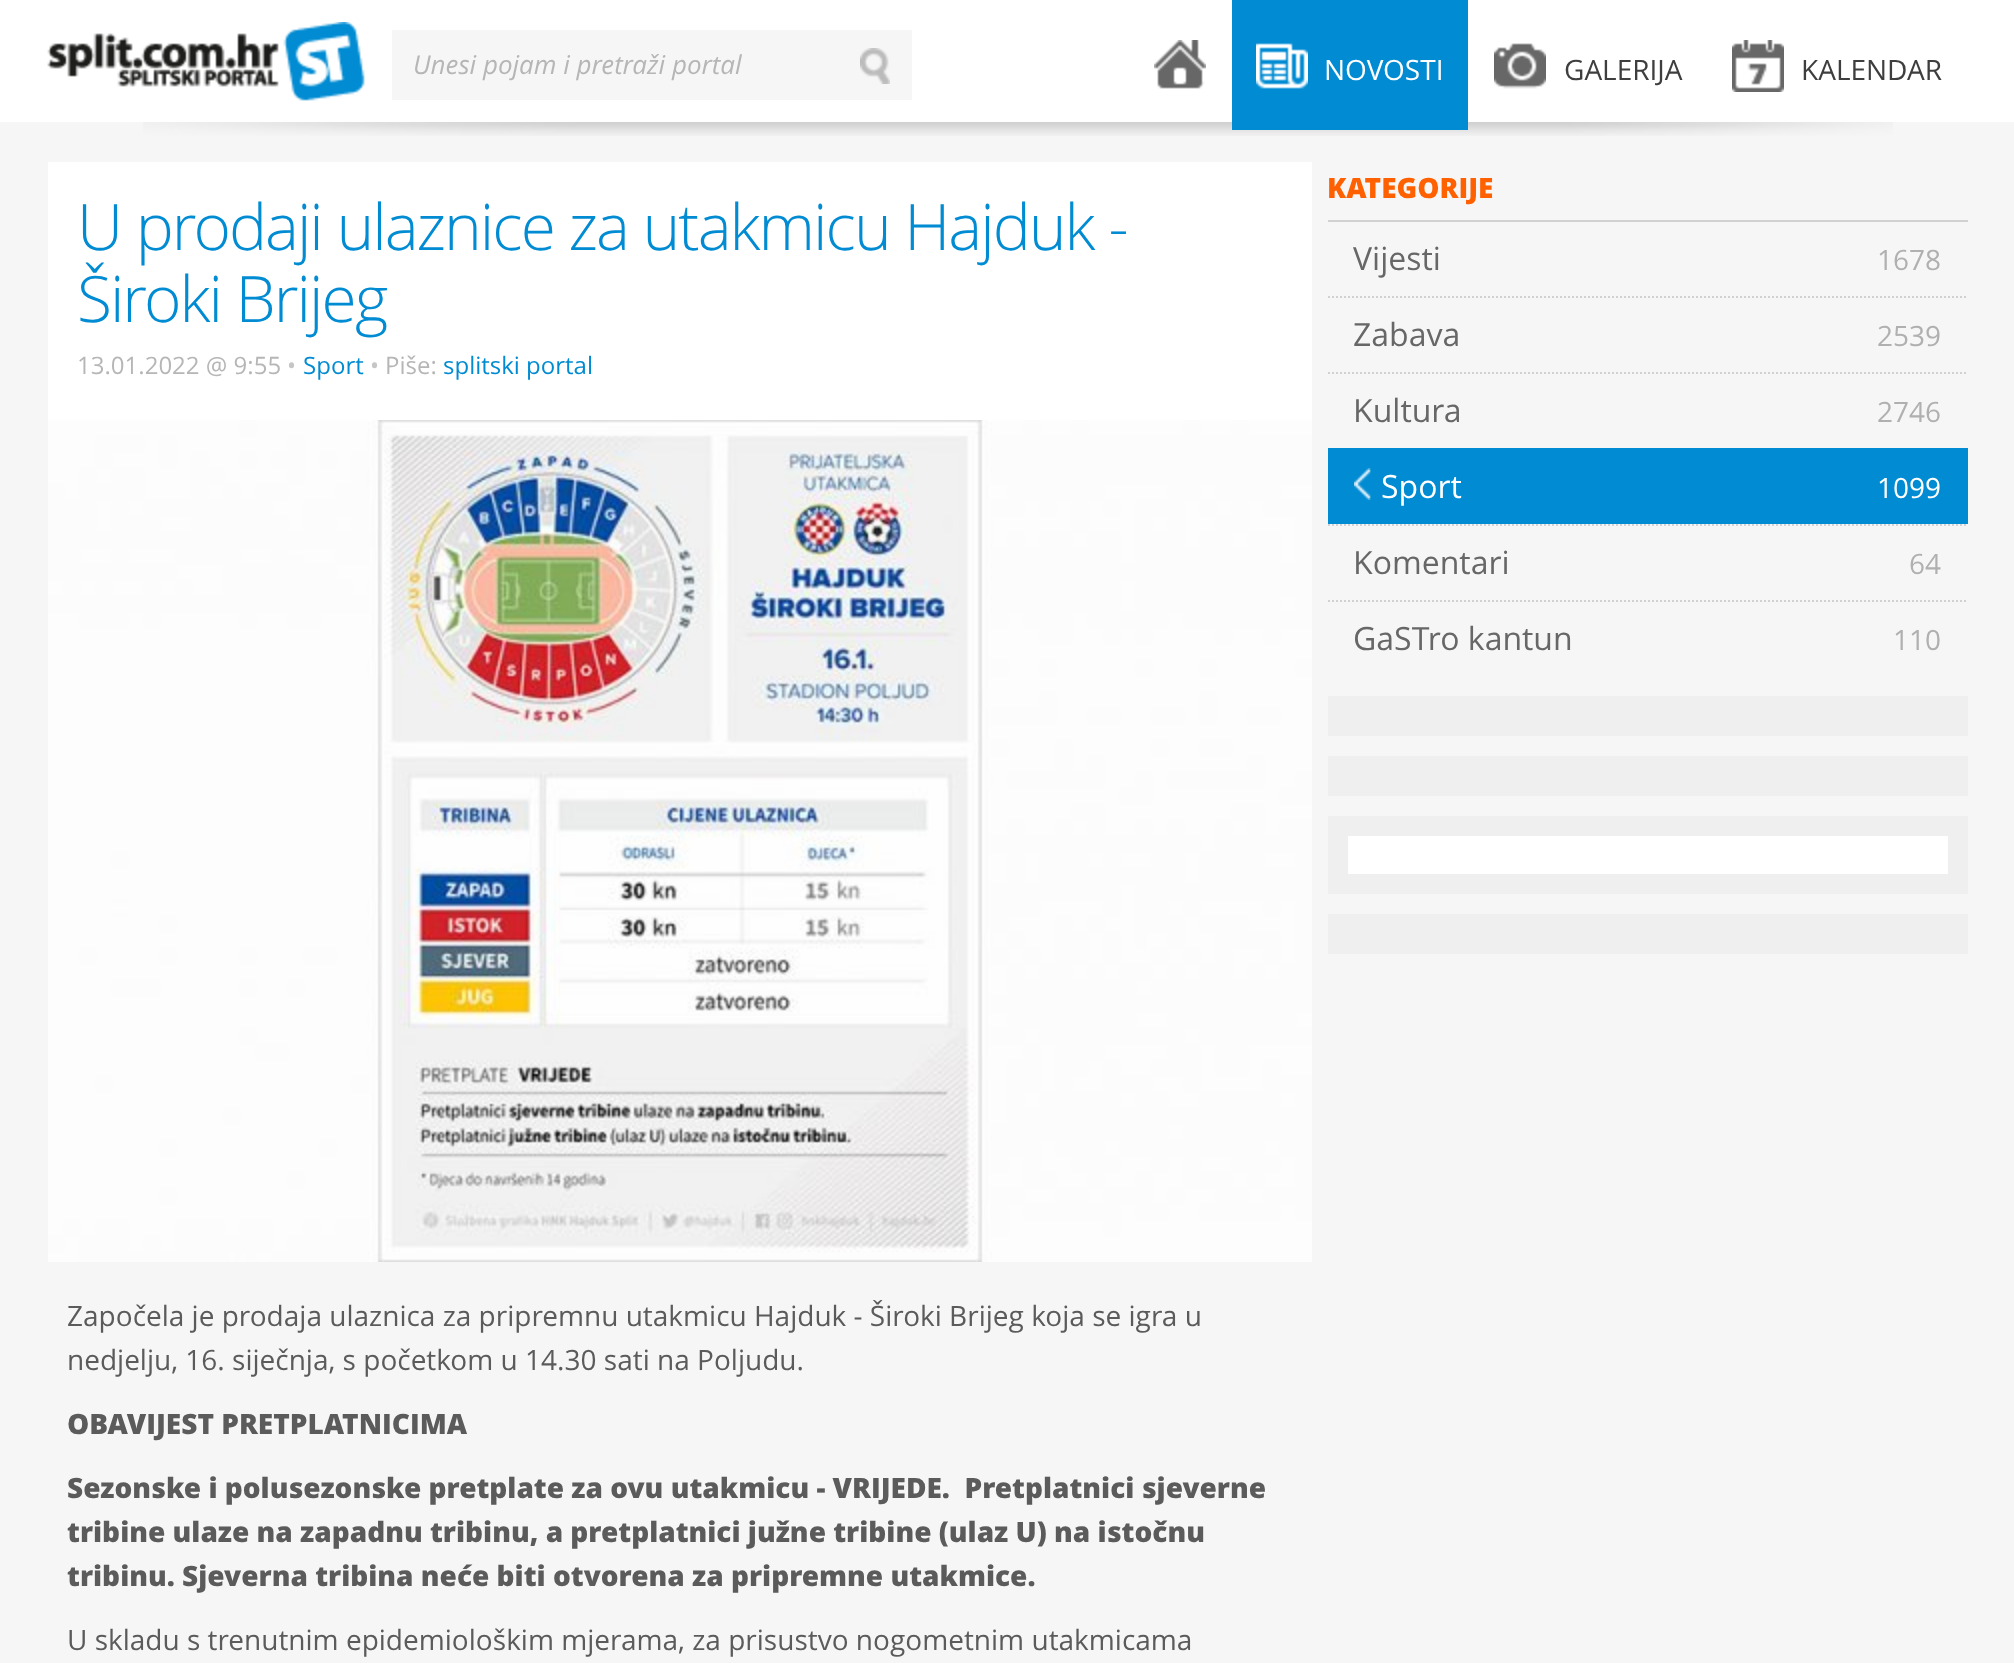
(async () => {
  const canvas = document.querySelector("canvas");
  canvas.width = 2014;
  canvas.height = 1663;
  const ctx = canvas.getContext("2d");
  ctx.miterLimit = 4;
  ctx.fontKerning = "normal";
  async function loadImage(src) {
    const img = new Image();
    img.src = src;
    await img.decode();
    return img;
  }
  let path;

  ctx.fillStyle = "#f6f6f6";
  ctx.fillRect(0, 0, 2014, 1663);
  ctx.fillStyle = "#ffffff";
  ctx.fillRect(0, 0, 2014, 122);
  ctx.drawImage(await loadImage("img/1.png"), 47, 22, 318, 79);
  ctx.fillStyle = "#f6f6f6";
  ctx.fillRect(392, 30, 520, 70);
  ctx.drawImage(await loadImage("img/2.png"), 860, 48, 30, 36);
  ctx.drawImage(await loadImage("img/3.png"), 1154, 40, 52, 49);
  ctx.drawImage(await loadImage("img/7.png"), 143, 122, 1750, 14);
  ctx.fillStyle = "#008bd2";
  ctx.fillRect(1232, 0, 236, 130);
  ctx.drawImage(await loadImage("img/4.png"), 1256, 43, 52, 46);
  ctx.drawImage(await loadImage("img/5.png"), 1494, 43, 52, 46);
  ctx.drawImage(await loadImage("img/6.png"), 1732, 40, 52, 52);
  ctx.fillStyle = "#ffffff";
  ctx.fillRect(48, 162, 1264, 258);
  ctx.drawImage(await loadImage("img/8.png"), 48, 420, 1264, 842);
  ctx.fillStyle = "#d1d1d1";
  ctx.fillRect(1328, 220, 640, 2);
  path = new Path2D("M1328 297H1968");
  ctx.strokeStyle = "#d1d1d1";
  ctx.lineWidth = 2;
  ctx.setLineDash([2, 2]);
  ctx.stroke(path);
  path = new Path2D("M1328 373H1968");
  ctx.stroke(path);
  ctx.fillStyle = "#008bd2";
  ctx.fillRect(1328, 448, 640, 76);
  ctx.drawImage(await loadImage("img/9.png"), 1354, 468, 17, 32);
  path = new Path2D("M1328 525H1968");
  ctx.stroke(path);
  path = new Path2D("M1328 601H1968");
  ctx.stroke(path);
  for (const [x, y, w, h, color] of [
    [1328, 696, 640, 40, "#efefef"],
    [1328, 756, 640, 40, "#efefef"],
    [1328, 816, 640, 78, "#efefef"],
    [1348, 836, 600, 38, "#ffffff"],
    [1328, 914, 640, 40, "#efefef"],
  ]) {
    ctx.fillStyle = color;
    ctx.fillRect(x, y, w, h);
  }
  ctx.font = "italic 26px Open Sans";
  ctx.fillStyle = "#b6b6b6";
  ctx.fillText("Unesi pojam i pretraži portal", 413, 74);
  ctx.font = "28px Open Sans";
  ctx.fillStyle = "#ffffff";
  ctx.fillText("NOVOSTI", 1324, 80);
  ctx.fillStyle = "#3e3e3e";
  ctx.fillText("GALERIJA", 1564, 80);
  ctx.fillText("KALENDAR", 1801, 80);
  ctx.letterSpacing = "-2px";
  ctx.font = "300 64px Open Sans";
  ctx.fillStyle = "#008bd2";
  ctx.fillText("U prodaji ulaznice za utakmicu Hajduk -", 77, 250);
  ctx.fillText("Široki Brijeg", 77, 322);
  ctx.letterSpacing = "0px";
  ctx.font = "24px Open Sans";
  ctx.fillStyle = "#b6b6b6";
  ctx.fillText("13.01.2022 @ 9:55", 77, 374);
  ctx.fillStyle = "#c6c6c6";
  ctx.fillText("•", 287, 374);
  ctx.fillStyle = "#008bd2";
  ctx.fillText("Sport", 303, 374);
  ctx.fillStyle = "#c6c6c6";
  ctx.fillText("•", 370, 374);
  ctx.fillStyle = "#b6b6b6";
  ctx.fillText("Piše:", 385, 374);
  ctx.fillStyle = "#008bd2";
  ctx.fillText("splitski portal", 443, 374);
  ctx.font = "28px Open Sans";
  ctx.fillStyle = "#5b5b5b";
  ctx.fillText("Započela je prodaja ulaznica za pripremnu utakmicu Hajduk - Široki Brijeg koja se igra u", 67, 1326);
  ctx.fillText("nedjelju, 16. siječnja, s početkom u 14.30 sati na Poljudu.", 67, 1370);
  ctx.font = "800 28px Open Sans";
  for (const [text, x, y] of [
    ["OBAVIJEST PRETPLATNICIMA", 67, 1434],
    ["Sezonske i polusezonske pretplate za ovu utakmicu - VRIJEDE.  Pretplatnici sjeverne", 67, 1498],
    ["tribine ulaze na zapadnu tribinu, a pretplatnici južne tribine (ulaz U) na istočnu", 67, 1542],
    ["tribinu. Sjeverna tribina neće biti otvorena za pripremne utakmice.", 67, 1586],
  ]) {
    ctx.fillText(text, x, y);
  }
  ctx.font = "28px Open Sans";
  ctx.fillText("U skladu s trenutnim epidemiološkim mjerama, za prisustvo nogometnim utakmicama", 67, 1650);
  ctx.font = "800 28px Open Sans";
  ctx.fillStyle = "#ff6000";
  ctx.fillText("KATEGORIJE", 1327, 198);
  ctx.font = "32px Open Sans";
  ctx.fillStyle = "#686767";
  ctx.fillText("Vijesti", 1353, 270);
  ctx.font = "28px Open Sans";
  ctx.fillStyle = "#b0b0b0";
  ctx.fillText("1678", 1877, 270);
  ctx.font = "32px Open Sans";
  ctx.fillStyle = "#686767";
  ctx.fillText("Zabava", 1353, 346);
  ctx.font = "28px Open Sans";
  ctx.fillStyle = "#b0b0b0";
  ctx.fillText("2539", 1877, 346);
  ctx.font = "32px Open Sans";
  ctx.fillStyle = "#686767";
  ctx.fillText("Kultura", 1353, 422);
  ctx.font = "28px Open Sans";
  ctx.fillStyle = "#b0b0b0";
  ctx.fillText("2746", 1877, 422);
  ctx.font = "32px Open Sans";
  ctx.fillStyle = "#ffffff";
  ctx.fillText("Sport", 1381, 498);
  ctx.font = "28px Open Sans";
  ctx.fillText("1099", 1877, 498);
  ctx.font = "32px Open Sans";
  ctx.fillStyle = "#686767";
  ctx.fillText("Komentari", 1353, 574);
  ctx.font = "28px Open Sans";
  ctx.fillStyle = "#b0b0b0";
  ctx.fillText("64", 1909, 574);
  ctx.font = "32px Open Sans";
  ctx.fillStyle = "#686767";
  ctx.fillText("GaSTro kantun", 1353, 650);
  ctx.font = "28px Open Sans";
  ctx.fillStyle = "#b0b0b0";
  ctx.fillText("110", 1893, 650);
})();
